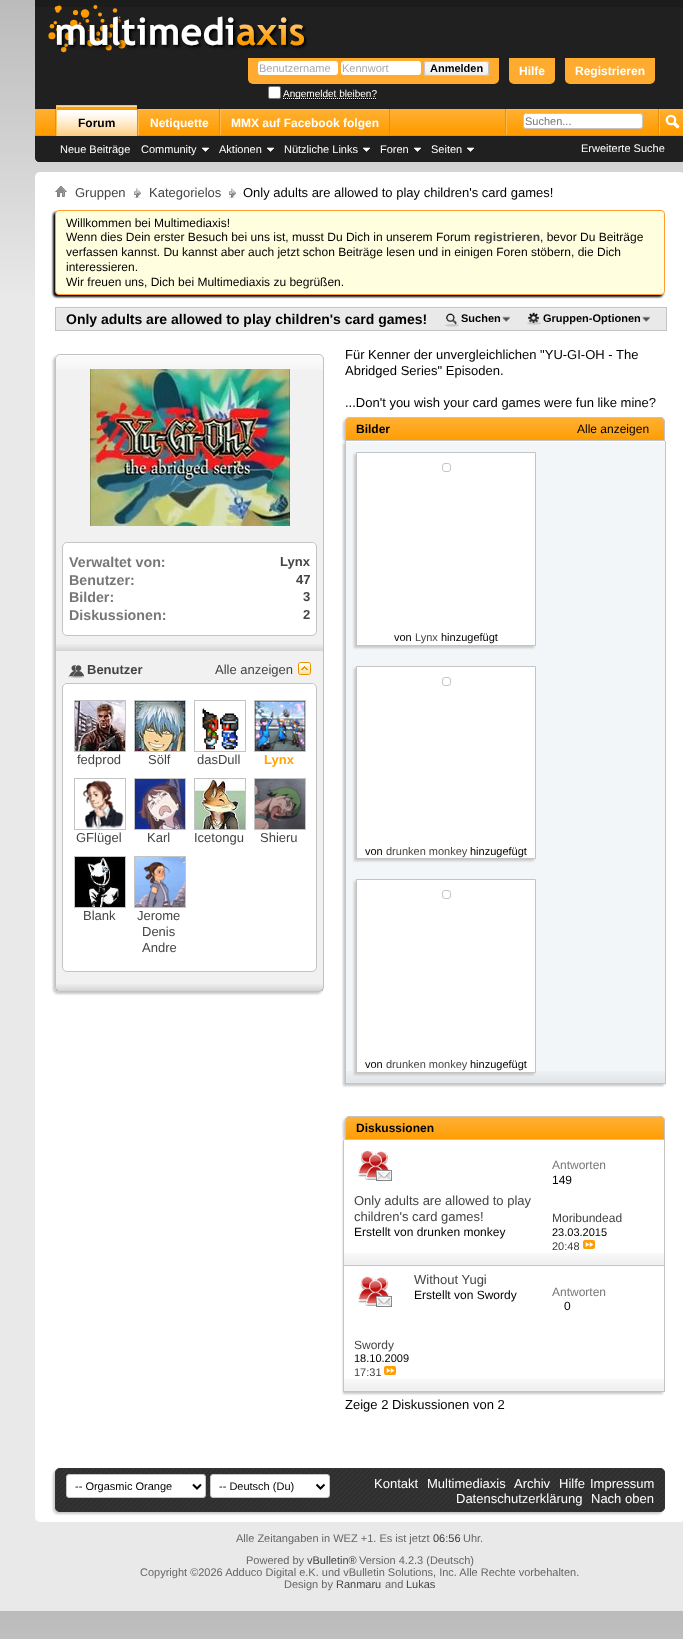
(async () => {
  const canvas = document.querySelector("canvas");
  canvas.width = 683;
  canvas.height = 1639;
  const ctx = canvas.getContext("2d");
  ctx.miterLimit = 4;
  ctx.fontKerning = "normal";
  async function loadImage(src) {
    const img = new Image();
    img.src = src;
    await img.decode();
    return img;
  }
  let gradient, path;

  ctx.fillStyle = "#ffffff";
  ctx.fillRect(0, 0, 683, 1639);
  gradient = ctx.createLinearGradient(0, 0, 0, 300);
  gradient.addColorStop(0, "#bbbbbb");
  gradient.addColorStop(1, "#e9e9e9");
  ctx.fillStyle = gradient;
  ctx.fillRect(0, 0, 683, 1611);
  gradient = ctx.createLinearGradient(0, 1611, 0, 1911);
  gradient.addColorStop(0, "#bbbbbb");
  gradient.addColorStop(1, "#e9e9e9");
  ctx.fillStyle = gradient;
  ctx.fillRect(0, 1611, 683, 28);
  ctx.fillStyle = "#202020";
  path = new Path2D("M35 0H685V157C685 160 683 162 680 162H40C37 162 35 160 35 157Z");
  ctx.fill(path);
  ctx.fillStyle = "#1c1c1c";
  ctx.fillRect(35, 0, 648, 7);
  ctx.drawImage(await loadImage("img/1.png"), 48, 5, 260, 48);
  ctx.fillStyle = "#ffab2f";
  ctx.beginPath();
  ctx.roundRect(248, 58, 251, 26, [0, 0, 5, 5]);
  ctx.fill();
  ctx.fillStyle = "#ffffff";
  ctx.beginPath();
  ctx.roundRect(258, 61, 80, 14, 3);
  ctx.fill();
  ctx.beginPath();
  ctx.roundRect(341, 61, 80, 14, 3);
  ctx.fill();
  ctx.fillStyle = "#e9e9e9";
  ctx.beginPath();
  ctx.roundRect(424, 61, 65, 15, 3);
  ctx.fill();
  ctx.drawImage(await loadImage("img/2.png"), 424, 62, 65, 13);
  ctx.beginPath();
  ctx.roundRect(424.5, 61.5, 64, 14, 2.5);
  ctx.strokeStyle = "#c4c4c4";
  ctx.stroke();
  ctx.fillStyle = "#ffffff";
  ctx.beginPath();
  ctx.roundRect(268.5, 86.5, 12, 12, 1.5);
  ctx.fill();
  ctx.strokeStyle = "#767676";
  ctx.stroke();
  path = new Path2D("M283 99.5H377");
  ctx.strokeStyle = "#000000";
  ctx.setLineDash([1, 1]);
  ctx.stroke(path);
  path = new Path2D("M283 98.5H377");
  ctx.strokeStyle = "#ffffff";
  ctx.stroke(path);
  ctx.fillStyle = "#ffab2f";
  ctx.beginPath();
  ctx.roundRect(509, 58, 46, 26, [0, 0, 5, 5]);
  ctx.fill();
  ctx.beginPath();
  ctx.roundRect(565, 58, 90, 26, [0, 0, 5, 5]);
  ctx.fill();
  ctx.fillStyle = "#202020";
  path = new Path2D("M35 109H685V157C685 160 683 162 680 162H40C37 162 35 160 35 157Z");
  ctx.fill(path);
  ctx.fillStyle = "#ff9d03";
  ctx.fillRect(35, 109, 648, 26);
  ctx.drawImage(await loadImage("img/3.png"), 35, 109, 648, 20);
  for (const [x, y, w, h, color] of [
    [137, 109, 1, 26, "#ee8e00"],
    [55, 109, 1, 26, "#ee8e00"],
    [219, 109, 1, 27, "#ee8e00"],
    [138, 109, 81, 1, "#ffbb4d"],
    [138, 109, 1, 27, "#ffbb4d"],
    [389, 109, 1, 27, "#ee8e00"],
    [220, 109, 169, 1, "#ffbb4d"],
    [220, 109, 1, 27, "#ffbb4d"],
    [35, 135, 648, 1, "#ee8e00"],
    [57, 106, 80, 30, "#ff9d03"],
  ]) {
    ctx.fillStyle = color;
    ctx.fillRect(x, y, w, h);
  }
  ctx.drawImage(await loadImage("img/4.png"), 57, 106, 80, 30);
  for (const [x, y, w, h, color] of [
    [56, 105, 81, 1, "#ffbb4d"],
    [56, 105, 1, 31, "#ffbb4d"],
    [139, 110, 80, 19, "#ff9d03"],
  ]) {
    ctx.fillStyle = color;
    ctx.fillRect(x, y, w, h);
  }
  ctx.drawImage(await loadImage("img/5.png"), 139, 110, 80, 20);
  ctx.fillRect(221, 110, 168, 19);
  ctx.drawImage(await loadImage("img/6.png"), 221, 110, 168, 20);
  ctx.drawImage(await loadImage("img/7.png"), 202, 147, 7, 5);
  ctx.drawImage(await loadImage("img/7.png"), 267, 147, 7, 5);
  ctx.drawImage(await loadImage("img/7.png"), 363, 147, 7, 5);
  ctx.drawImage(await loadImage("img/7.png"), 414, 147, 7, 5);
  ctx.drawImage(await loadImage("img/7.png"), 467, 147, 7, 5);
  for (const [x, y, w, h, color] of [
    [505, 109, 1, 26, "#ee8e00"],
    [506, 109, 152, 1, "#ffbb4d"],
    [506, 109, 1, 26, "#ffbb4d"],
  ]) {
    ctx.fillStyle = color;
    ctx.fillRect(x, y, w, h);
  }
  ctx.fillStyle = "#ffffff";
  ctx.beginPath();
  ctx.roundRect(523.5, 113.5, 119, 15, 2.5);
  ctx.fill();
  ctx.strokeStyle = "#c4c4c4";
  ctx.setLineDash([]);
  ctx.stroke();
  for (const [x, y, w, h, color] of [
    [658, 109, 1, 26, "#ee8e00"],
    [659, 109, 24, 1, "#ffbb4d"],
    [659, 109, 1, 26, "#ffbb4d"],
  ]) {
    ctx.fillStyle = color;
    ctx.fillRect(x, y, w, h);
  }
  ctx.drawImage(await loadImage("img/8.png"), 665, 114, 15, 15);
  ctx.fillStyle = "#ffffff";
  ctx.beginPath();
  ctx.roundRect(35, 172, 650, 1350, 5);
  ctx.fill();
  ctx.drawImage(await loadImage("img/9.png"), 55, 186, 12, 11);
  ctx.drawImage(await loadImage("img/10.png"), 134, 188, 7, 10);
  ctx.drawImage(await loadImage("img/10.png"), 229, 188, 7, 10);
  ctx.fillStyle = "#000000";
  ctx.filter = "blur(1px)";
  ctx.beginPath();
  ctx.roundRect(53, 212, 610, 85, 4);
  ctx.fill();
  ctx.filter = "none";
  ctx.fillStyle = "#ffffe0";
  ctx.beginPath();
  ctx.roundRect(55.5, 210.5, 609, 84, 3.5);
  ctx.fill();
  ctx.strokeStyle = "#ff9d30";
  ctx.stroke();
  ctx.fillStyle = "#e9e9e9";
  ctx.fillRect(56, 309, 610, 21);
  ctx.fillStyle = "#ededed";
  ctx.fillRect(55, 308, 612, 1);
  ctx.strokeStyle = "#c4c4c4";
  ctx.strokeRect(55.5, 307.5, 611, 23);
  ctx.drawImage(await loadImage("img/11.png"), 445, 313, 14, 14);
  ctx.drawImage(await loadImage("img/12.png"), 502, 316, 9, 7);
  ctx.drawImage(await loadImage("img/13.png"), 527, 312, 14, 13);
  ctx.drawImage(await loadImage("img/12.png"), 642, 316, 9, 7);
  ctx.fillStyle = "#c8c8c8";
  ctx.filter = "blur(1px)";
  ctx.beginPath();
  ctx.roundRect(53, 356, 269, 638, 5);
  ctx.fill();
  ctx.filter = "none";
  ctx.fillStyle = "#f1f1f1";
  ctx.beginPath();
  ctx.roundRect(55, 354, 269, 638, 5);
  ctx.fill();
  ctx.drawImage(await loadImage("img/14.png"), 55, 355, 269, 15);
  ctx.beginPath();
  ctx.roundRect(55.5, 354.5, 268, 637, 4.5);
  ctx.strokeStyle = "#c1c1c1";
  ctx.stroke();
  ctx.drawImage(await loadImage("img/15.png"), 90, 369, 200, 157);
  ctx.fillStyle = "#ffffff";
  ctx.beginPath();
  ctx.roundRect(62.5, 542.5, 254, 93, 4.5);
  ctx.fill();
  ctx.strokeStyle = "#c4c4c4";
  ctx.stroke();
  ctx.fillRect(66, 543, 248, 1);
  ctx.drawImage(await loadImage("img/16.png"), 56, 644, 267, 7);
  ctx.drawImage(await loadImage("img/17.png"), 68, 665, 16, 13);
  ctx.drawImage(await loadImage("img/18.png"), 298, 662, 13, 13);
  ctx.beginPath();
  ctx.roundRect(62.5, 683.5, 254, 288, 4.5);
  ctx.fill();
  ctx.stroke();
  ctx.fillRect(66, 684, 248, 1);
  ctx.strokeRect(74.5, 700.5, 51, 51);
  ctx.drawImage(await loadImage("img/19.png"), 75, 701, 50, 50);
  ctx.strokeRect(134.5, 700.5, 51, 51);
  ctx.drawImage(await loadImage("img/20.png"), 135, 701, 50, 50);
  ctx.strokeRect(194.5, 700.5, 51, 51);
  ctx.drawImage(await loadImage("img/21.png"), 202, 708, 37, 42);
  ctx.strokeRect(254.5, 700.5, 51, 51);
  ctx.drawImage(await loadImage("img/22.png"), 255, 701, 50, 50);
  ctx.strokeRect(74.5, 778.5, 51, 51);
  ctx.drawImage(await loadImage("img/23.png"), 82, 780, 42, 49);
  ctx.strokeRect(134.5, 778.5, 51, 51);
  ctx.drawImage(await loadImage("img/24.png"), 135, 779, 50, 50);
  ctx.strokeRect(194.5, 778.5, 51, 51);
  ctx.drawImage(await loadImage("img/25.png"), 195, 779, 50, 50);
  ctx.strokeRect(254.5, 778.5, 51, 51);
  ctx.drawImage(await loadImage("img/26.png"), 255, 779, 50, 50);
  ctx.strokeRect(74.5, 856.5, 51, 51);
  ctx.drawImage(await loadImage("img/27.png"), 75, 857, 50, 50);
  ctx.strokeRect(134.5, 856.5, 51, 51);
  ctx.drawImage(await loadImage("img/28.png"), 135, 857, 50, 50);
  ctx.drawImage(await loadImage("img/29.png"), 56, 984, 267, 7);
  ctx.fillStyle = "#c8c8c8";
  ctx.filter = "blur(1px)";
  ctx.beginPath();
  ctx.roundRect(343, 419, 320, 24, 5);
  ctx.fill();
  ctx.filter = "none";
  ctx.fillStyle = "#ff9d03";
  ctx.beginPath();
  ctx.roundRect(345, 417, 320, 24, [5, 5, 0, 0]);
  ctx.fill();
  ctx.drawImage(await loadImage("img/30.png"), 345, 418, 320, 20);
  ctx.beginPath();
  ctx.roundRect(345.5, 417.5, 319, 23, [4.5, 4.5, 0, 0]);
  ctx.stroke();
  ctx.fillStyle = "#c8c8c8";
  ctx.filter = "blur(1px)";
  ctx.beginPath();
  ctx.rect(343, 443, 321, 643);
  ctx.fill();
  ctx.filter = "none";
  ctx.fillStyle = "#f2f6f8";
  ctx.fillRect(346, 442, 319, 641);
  ctx.drawImage(await loadImage("img/31.png"), 346, 1071, 319, 12);
  for (const [x, y, w, h, color] of [
    [345, 441, 321, 1, "#ffffff"],
    [665, 441, 1, 643, "#c4c4c4"],
    [345, 1083, 321, 1, "#c4c4c4"],
    [345, 441, 1, 643, "#c4c4c4"],
  ]) {
    ctx.fillStyle = color;
    ctx.fillRect(x, y, w, h);
  }
  ctx.fillStyle = "#c8c8c8";
  ctx.filter = "blur(1px)";
  ctx.beginPath();
  ctx.rect(354, 454, 180, 194);
  ctx.fill();
  ctx.filter = "none";
  ctx.fillStyle = "#ffffff";
  ctx.beginPath();
  ctx.rect(356.5, 452.5, 179, 193);
  ctx.fill();
  ctx.stroke();
  ctx.beginPath();
  ctx.roundRect(442.5, 463.5, 8, 8, 2.5);
  ctx.stroke();
  ctx.fillStyle = "#c8c8c8";
  ctx.filter = "blur(1px)";
  ctx.beginPath();
  ctx.rect(354, 668, 180, 193);
  ctx.fill();
  ctx.filter = "none";
  ctx.fillStyle = "#ffffff";
  ctx.beginPath();
  ctx.rect(356.5, 666.5, 179, 192);
  ctx.fill();
  ctx.stroke();
  ctx.beginPath();
  ctx.roundRect(442.5, 677.5, 8, 8, 2.5);
  ctx.stroke();
  ctx.fillStyle = "#c8c8c8";
  ctx.filter = "blur(1px)";
  ctx.beginPath();
  ctx.rect(354, 881, 180, 194);
  ctx.fill();
  ctx.filter = "none";
  ctx.fillStyle = "#ffffff";
  ctx.beginPath();
  ctx.rect(356.5, 879.5, 179, 193);
  ctx.fill();
  ctx.stroke();
  ctx.beginPath();
  ctx.roundRect(442.5, 890.5, 8, 8, 2.5);
  ctx.stroke();
  ctx.fillStyle = "#c8c8c8";
  ctx.filter = "blur(1px)";
  ctx.beginPath();
  ctx.roundRect(343, 1118, 320, 24, 5);
  ctx.fill();
  ctx.filter = "none";
  ctx.fillStyle = "#ff9d03";
  ctx.beginPath();
  ctx.roundRect(345, 1116, 320, 24, [5, 5, 0, 0]);
  ctx.fill();
  ctx.drawImage(await loadImage("img/30.png"), 345, 1117, 320, 20);
  ctx.beginPath();
  ctx.roundRect(345.5, 1116.5, 319, 23, [4.5, 4.5, 0, 0]);
  ctx.stroke();
  ctx.fillStyle = "#c8c8c8";
  ctx.filter = "blur(1px)";
  ctx.beginPath();
  ctx.rect(343, 1142, 320, 126);
  ctx.fill();
  ctx.filter = "none";
  ctx.fillStyle = "#ffffff";
  ctx.fillRect(344, 1140, 320, 125);
  ctx.drawImage(await loadImage("img/32.png"), 344, 1253, 320, 12);
  for (const [x, y, w, h, color] of [
    [664, 1140, 1, 126, "#c4c4c4"],
    [343, 1265, 322, 1, "#c4c4c4"],
    [343, 1140, 1, 126, "#c4c4c4"],
  ]) {
    ctx.fillStyle = color;
    ctx.fillRect(x, y, w, h);
  }
  ctx.drawImage(await loadImage("img/33.png"), 358, 1150, 34, 31);
  ctx.drawImage(await loadImage("img/34.png"), 583, 1240, 12, 9);
  ctx.fillStyle = "#c8c8c8";
  ctx.filter = "blur(1px)";
  ctx.beginPath();
  ctx.rect(343, 1268, 320, 126);
  ctx.fill();
  ctx.filter = "none";
  ctx.fillStyle = "#ffffff";
  ctx.fillRect(344, 1266, 320, 125);
  ctx.drawImage(await loadImage("img/32.png"), 344, 1379, 320, 12);
  for (const [x, y, w, h, color] of [
    [664, 1266, 1, 126, "#c4c4c4"],
    [343, 1391, 322, 1, "#c4c4c4"],
    [343, 1266, 1, 126, "#c4c4c4"],
  ]) {
    ctx.fillStyle = color;
    ctx.fillRect(x, y, w, h);
  }
  ctx.drawImage(await loadImage("img/33.png"), 358, 1276, 34, 31);
  ctx.drawImage(await loadImage("img/34.png"), 384, 1366, 12, 9);
  ctx.fillStyle = "#c8c8c8";
  ctx.filter = "blur(1px)";
  ctx.beginPath();
  ctx.roundRect(53, 1470, 610, 44, 5);
  ctx.fill();
  ctx.filter = "none";
  ctx.drawImage(await loadImage("img/35.png"), 55, 1468, 610, 44);
  ctx.beginPath();
  ctx.roundRect(55.5, 1468.5, 609, 43, 4.5);
  ctx.strokeStyle = "#333333";
  ctx.stroke();
  ctx.fillStyle = "#ffffff";
  ctx.beginPath();
  ctx.roundRect(66.5, 1474.5, 139, 23, 2.5);
  ctx.fill();
  ctx.strokeStyle = "#c4c4c4";
  ctx.stroke();
  path = new Path2D("M193 1484.5L197 1488.5L201 1484.5");
  ctx.strokeStyle = "#000000";
  ctx.lineWidth = 2;
  ctx.stroke(path);
  ctx.beginPath();
  ctx.roundRect(210.5, 1474.5, 119, 23, 2.5);
  ctx.fill();
  ctx.strokeStyle = "#c4c4c4";
  ctx.lineWidth = 1;
  ctx.stroke();
  path = new Path2D("M316.5 1484.5L320.5 1488.5L324.5 1484.5");
  ctx.strokeStyle = "#000000";
  ctx.lineWidth = 2;
  ctx.stroke(path);
  ctx.font = "11px Liberation Sans";
  ctx.fillStyle = "#a9a9a9";
  ctx.fillText("Benutzername", 259, 72);
  ctx.fillText("Kennwort", 342, 72);
  ctx.font = "bold 11px Liberation Sans";
  ctx.fillStyle = "#000000";
  ctx.fillText("Anmelden", 430, 72);
  ctx.font = "10px Liberation Sans";
  ctx.fillStyle = "#ffffff";
  ctx.fillText("Angemeldet bleiben?", 283, 97);
  ctx.font = "bold 12px Liberation Sans";
  ctx.fillText("Hilfe", 519, 75);
  ctx.fillText("Registrieren", 575, 75);
  ctx.fillStyle = "#000000";
  ctx.fillText("Forum", 78, 127);
  ctx.fillStyle = "#ffffff";
  ctx.fillText("Netiquette", 150, 127);
  ctx.fillText("MMX auf Facebook folgen", 231, 127);
  ctx.font = "11px Liberation Sans";
  for (const [text, x, y] of [
    ["Neue Beiträge", 60, 153],
    ["Community", 141, 153],
    ["Aktionen", 219, 153],
    ["Nützliche Links", 284, 153],
    ["Foren", 380, 153],
    ["Seiten", 431, 153],
  ]) {
    ctx.fillText(text, x, y);
  }
  ctx.fillStyle = "#777777";
  ctx.fillText("Suchen...", 525, 125);
  ctx.fillStyle = "#ffffff";
  ctx.fillText("Erweiterte Suche", 581, 152);
  ctx.font = "13px Liberation Sans";
  ctx.fillStyle = "#444444";
  ctx.fillText("Gruppen", 75, 197);
  ctx.fillText("Kategorielos", 149, 197);
  ctx.fillStyle = "#000000";
  ctx.fillText("Only adults are allowed to play children's card games!", 243, 197);
  ctx.font = "12px Liberation Sans";
  ctx.fillText("Willkommen bei Multimediaxis!", 66, 227);
  ctx.fillText("Wenn dies Dein erster Besuch bei uns ist, musst Du Dich in unserem Forum", 66, 241);
  ctx.font = "bold 12px Liberation Sans";
  ctx.fillStyle = "#444444";
  ctx.fillText("registrieren", 474, 241);
  ctx.font = "12px Liberation Sans";
  ctx.fillStyle = "#000000";
  for (const [text, x, y] of [
    [", bevor Du Beiträge", 540, 241],
    ["verfassen kannst. Du kannst aber auch jetzt schon Beiträge lesen und in einigen Foren stöbern, die Dich", 66, 256],
    ["interessieren.", 66, 271],
    ["Wir freuen uns, Dich bei Multimediaxis zu begrüßen.", 66, 286],
  ]) {
    ctx.fillText(text, x, y);
  }
  ctx.font = "bold 14px Liberation Sans";
  ctx.fillText("Only adults are allowed to play children's card games!", 66, 324);
  ctx.font = "bold 11px Liberation Sans";
  ctx.fillText("Suchen", 461, 322);
  ctx.fillText("Gruppen-Optionen", 543, 322);
  ctx.font = "bold 14.25px Liberation Sans";
  ctx.fillStyle = "#777777";
  ctx.fillText("Verwaltet von:", 69, 567);
  ctx.font = "bold 13px Liberation Sans";
  ctx.fillStyle = "#444444";
  ctx.fillText("Lynx", 280, 566);
  ctx.font = "bold 14.25px Liberation Sans";
  ctx.fillStyle = "#777777";
  ctx.fillText("Benutzer:", 69, 585);
  ctx.font = "bold 13px Liberation Sans";
  ctx.fillStyle = "#444444";
  ctx.fillText("47", 296, 584);
  ctx.font = "bold 14.25px Liberation Sans";
  ctx.fillStyle = "#777777";
  ctx.fillText("Bilder:", 69, 602);
  ctx.font = "bold 13px Liberation Sans";
  ctx.fillStyle = "#444444";
  ctx.fillText("3", 303, 601);
  ctx.font = "bold 14.25px Liberation Sans";
  ctx.fillStyle = "#777777";
  ctx.fillText("Diskussionen:", 69, 620);
  ctx.font = "bold 13px Liberation Sans";
  ctx.fillStyle = "#444444";
  ctx.fillText("2", 303, 619);
  ctx.fillText("Benutzer", 87, 674);
  ctx.font = "13px Liberation Sans";
  for (const [text, x, y] of [
    ["Alle anzeigen", 215, 674],
    ["fedprod", 77, 764],
    ["Sölf", 148, 764],
    ["dasDull", 197, 764],
  ]) {
    ctx.fillText(text, x, y);
  }
  ctx.font = "bold 13px Liberation Sans";
  ctx.fillStyle = "#ffa500";
  ctx.fillText("Lynx", 264, 764);
  ctx.font = "13px Liberation Sans";
  ctx.fillStyle = "#444444";
  for (const [text, x, y] of [
    ["GFlügel", 76, 842],
    ["Karl", 147, 842],
    ["Icetongu", 194, 842],
    ["Shieru", 260, 842],
    ["Blank", 83, 920],
    ["Jerome", 137, 920],
    ["Denis", 142, 936],
    ["Andre", 142, 952],
  ]) {
    ctx.fillText(text, x, y);
  }
  ctx.fillStyle = "#000000";
  for (const [text, x, y] of [
    ["Für Kenner der unvergleichlichen \"YU-GI-OH - The", 345, 359],
    ["Abridged Series\" Episoden.", 345, 375],
    ["...Don't you wish your card games were fun like mine?", 345, 407],
  ]) {
    ctx.fillText(text, x, y);
  }
  ctx.font = "bold 12px Liberation Sans";
  ctx.fillText("Bilder", 356, 433);
  ctx.font = "12px Liberation Sans";
  ctx.fillText("Alle anzeigen", 577, 433);
  ctx.font = "11px Liberation Sans";
  ctx.fillText("von", 394, 641);
  ctx.fillStyle = "#444444";
  ctx.fillText("Lynx", 415, 641);
  ctx.fillStyle = "#000000";
  ctx.fillText("hinzugefügt", 441, 641);
  ctx.fillText("von", 365, 855);
  ctx.fillStyle = "#444444";
  ctx.fillText("drunken monkey", 386, 855);
  ctx.fillStyle = "#000000";
  ctx.fillText("hinzugefügt", 470, 855);
  ctx.fillText("von", 365, 1068);
  ctx.fillStyle = "#444444";
  ctx.fillText("drunken monkey", 386, 1068);
  ctx.fillStyle = "#000000";
  ctx.fillText("hinzugefügt", 470, 1068);
  ctx.font = "bold 12px Liberation Sans";
  ctx.fillText("Diskussionen", 356, 1132);
  ctx.font = "12px Liberation Sans";
  ctx.fillStyle = "#777777";
  ctx.fillText("Antworten", 552, 1169);
  ctx.fillStyle = "#000000";
  ctx.fillText("149", 552, 1184);
  ctx.font = "13px Liberation Sans";
  ctx.fillStyle = "#444444";
  ctx.fillText("Only adults are allowed to play", 354, 1205);
  ctx.fillText("children's card games!", 354, 1221);
  ctx.font = "12px Liberation Sans";
  ctx.fillStyle = "#000000";
  ctx.fillText("Erstellt von drunken monkey", 354, 1236);
  ctx.fillStyle = "#444444";
  ctx.fillText("Moribundead", 552, 1222);
  ctx.font = "11px Liberation Sans";
  ctx.fillStyle = "#000000";
  ctx.fillText("23.03.2015", 552, 1236);
  ctx.fillStyle = "#3e3e3e";
  ctx.fillText("20:48", 552, 1250);
  ctx.font = "13px Liberation Sans";
  ctx.fillStyle = "#444444";
  ctx.fillText("Without Yugi", 414, 1284);
  ctx.font = "12px Liberation Sans";
  ctx.fillStyle = "#000000";
  ctx.fillText("Erstellt von Swordy", 414, 1299);
  ctx.fillStyle = "#777777";
  ctx.fillText("Antworten", 552, 1296);
  ctx.fillStyle = "#000000";
  ctx.fillText("0", 564, 1310);
  ctx.fillStyle = "#444444";
  ctx.fillText("Swordy", 354, 1349);
  ctx.font = "11px Liberation Sans";
  ctx.fillStyle = "#000000";
  ctx.fillText("18.10.2009", 354, 1362);
  ctx.fillStyle = "#3e3e3e";
  ctx.fillText("17:31", 354, 1376);
  ctx.font = "13px Liberation Sans";
  ctx.fillStyle = "#000000";
  ctx.fillText("Zeige 2 Diskussionen von 2", 345, 1409);
  ctx.font = "11px Liberation Sans";
  ctx.fillText("-- Orgasmic Orange", 75, 1490);
  ctx.fillText("-- Deutsch (Du)", 219, 1490);
  ctx.font = "13px Liberation Sans";
  ctx.fillStyle = "#ffffff";
  for (const [text, x, y] of [
    ["Kontakt", 374, 1488],
    ["Multimediaxis", 427, 1488],
    ["Archiv", 514, 1488],
    ["Hilfe", 559, 1488],
    ["Impressum", 590, 1488],
    ["Datenschutzerklärung", 456, 1503],
    ["Nach oben", 591, 1503],
  ]) {
    ctx.fillText(text, x, y);
  }
  ctx.font = "11px Liberation Sans";
  ctx.fillStyle = "#666666";
  ctx.fillText("Alle Zeitangaben in WEZ +1. Es ist jetzt", 236, 1542);
  ctx.fillStyle = "#3e3e3e";
  ctx.fillText("06:56", 433, 1542);
  ctx.fillStyle = "#666666";
  ctx.fillText("Uhr.", 463, 1542);
  ctx.fillText("Powered by", 246, 1564);
  ctx.fillStyle = "#444444";
  ctx.fillText("vBulletin®", 307, 1564);
  ctx.fillStyle = "#666666";
  for (const [text, x, y] of [
    ["Version 4.2.3 (Deutsch)", 359, 1564],
    ["Copyright ©2026 Adduco Digital e.K. und vBulletin Solutions, Inc. Alle Rechte vorbehalten.", 140, 1576],
    ["Design by", 284, 1588],
  ]) {
    ctx.fillText(text, x, y);
  }
  ctx.fillStyle = "#444444";
  ctx.fillText("Ranmaru", 336, 1588);
  ctx.fillStyle = "#666666";
  ctx.fillText("and", 385, 1588);
  ctx.fillStyle = "#444444";
  ctx.fillText("Lukas", 406, 1588);
})();
